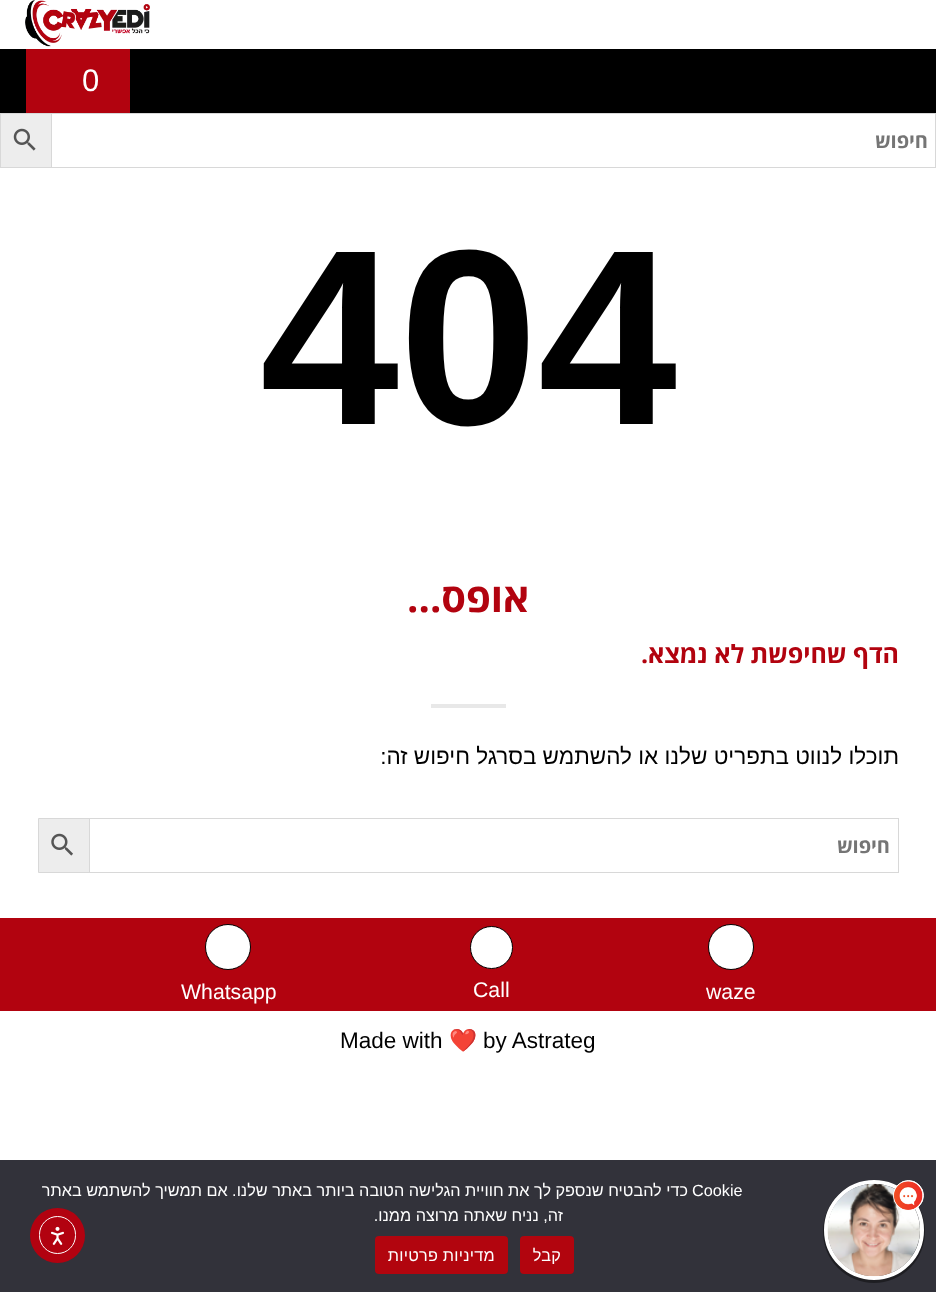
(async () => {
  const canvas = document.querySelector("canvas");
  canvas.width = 936;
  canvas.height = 1292;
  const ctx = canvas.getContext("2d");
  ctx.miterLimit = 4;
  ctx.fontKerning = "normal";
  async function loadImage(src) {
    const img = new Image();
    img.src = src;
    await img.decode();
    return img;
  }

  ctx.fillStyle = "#ffffff";
  ctx.fillRect(0, 0, 936, 1292);
  ctx.drawImage(await loadImage("img/1.png"), 25, 0, 125, 47);
  for (const [x, y, w, h, color] of [
    [0, 49, 936, 64, "#000000"],
    [26, 49, 104, 64, "#b2030f"],
    [1, 114, 50, 53, "#ededed"],
  ]) {
    ctx.fillStyle = color;
    ctx.fillRect(x, y, w, h);
  }
  ctx.strokeStyle = "#d8d8d8";
  ctx.strokeRect(0.5, 113.5, 52, 54);
  ctx.fillStyle = "#ffffff";
  ctx.fillRect(52, 114, 1, 53);
  ctx.strokeRect(51.5, 113.5, 884, 54);
  ctx.drawImage(await loadImage("img/2.png"), 13, 128, 23, 23);
  ctx.fillStyle = "#e8e8e8";
  ctx.fillRect(431, 704, 75, 4);
  ctx.fillStyle = "#ededed";
  ctx.beginPath();
  ctx.rect(38.5, 818.5, 51, 54);
  ctx.fill();
  ctx.stroke();
  ctx.strokeRect(89.5, 818.5, 809, 54);
  ctx.drawImage(await loadImage("img/3.png"), 51, 833, 22, 23);
  ctx.fillStyle = "#b2030f";
  ctx.fillRect(0, 918, 936, 93);
  ctx.fillStyle = "#ffffff";
  ctx.beginPath();
  ctx.arc(731, 947, 22.5, 0, Math.PI * 2);
  ctx.fill();
  ctx.strokeStyle = "#000000";
  ctx.stroke();
  ctx.beginPath();
  ctx.arc(491.5, 947.5, 21, 0, Math.PI * 2);
  ctx.fill();
  ctx.stroke();
  ctx.beginPath();
  ctx.arc(228, 947, 22.5, 0, Math.PI * 2);
  ctx.fill();
  ctx.stroke();
  ctx.fillStyle = "#32323a";
  ctx.fillRect(0, 1160, 936, 132);
  ctx.beginPath();
  ctx.roundRect(875.5, 1214.5, 42, 21, 3.5);
  ctx.strokeStyle = "#7f3350";
  ctx.stroke();
  ctx.fillStyle = "rgba(0, 0, 0, 0.4)";
  ctx.filter = "blur(0.5px)";
  ctx.beginPath();
  ctx.roundRect(823, 1180, 102, 103, 51);
  ctx.fill();
  ctx.filter = "none";
  ctx.beginPath();
  ctx.arc(874, 1230, 48, 0, Math.PI * 2);
  ctx.strokeStyle = "#ffffff";
  ctx.lineWidth = 4;
  ctx.stroke();
  ctx.drawImage(await loadImage("img/4.png"), 827, 1183, 93, 94);
  ctx.fillStyle = "#ffffff";
  ctx.beginPath();
  ctx.arc(908.5, 1195.5, 15, 0, Math.PI * 2);
  ctx.fill();
  ctx.lineWidth = 1;
  ctx.stroke();
  ctx.drawImage(await loadImage("img/5.png"), 893, 1181, 30, 29);
  ctx.fillStyle = "#b2050e";
  ctx.beginPath();
  ctx.roundRect(520, 1236, 54, 38, 4);
  ctx.fill();
  ctx.beginPath();
  ctx.roundRect(375, 1236, 133, 38, 4);
  ctx.fill();
  ctx.fillStyle = "#b20210";
  ctx.beginPath();
  ctx.arc(57.5, 1235.5, 27.5, 0, Math.PI * 2);
  ctx.fill();
  ctx.beginPath();
  ctx.roundRect(39.5, 1216.5, 36, 37, 18);
  ctx.stroke();
  ctx.drawImage(await loadImage("img/6.png"), 51, 1226, 13, 19);
  ctx.font = "31px Liberation Sans";
  ctx.fillStyle = "#ffffff";
  ctx.fillText("0", 82, 91);
  ctx.direction = "rtl";
  ctx.font = "bold 20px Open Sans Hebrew";
  ctx.fillStyle = "#757575";
  ctx.fillText("חיפוש", 928, 148);
  ctx.direction = "ltr";
  ctx.font = "bold 250px Liberation Sans";
  ctx.fillStyle = "#000000";
  ctx.fillText("404", 260, 424);
  ctx.direction = "rtl";
  ctx.font = "bold 40px Open Sans Hebrew";
  ctx.fillStyle = "#b2030f";
  ctx.fillText("אופס...", 529, 612);
  ctx.font = "bold 25px Open Sans Hebrew";
  ctx.fillText("הדף שחיפשת לא נמצא.", 899, 663);
  ctx.font = "22.5px Liberation Sans";
  ctx.fillStyle = "#000000";
  ctx.fillText("תוכלו לנווט בתפריט שלנו או להשתמש בסרגל חיפוש זה:", 899, 764);
  ctx.font = "bold 20px Open Sans Hebrew";
  ctx.fillStyle = "#757575";
  ctx.fillText("חיפוש", 890, 853);
  ctx.direction = "ltr";
  ctx.font = "21.25px Liberation Sans";
  ctx.fillStyle = "#ffffff";
  for (const [text, x, y] of [
    ["waze", 706, 999],
    ["Call", 473, 997],
    ["Whatsapp", 181, 999],
  ]) {
    ctx.fillText(text, x, y);
  }
  ctx.font = "22.5px Liberation Sans";
  ctx.fillStyle = "#000000";
  ctx.fillText("by Astrateg", 483, 1048);
  ctx.font = "22.5px Noto Color Emoji";
  ctx.fillText("❤️", 449, 1048);
  ctx.font = "22.5px Liberation Sans";
  ctx.fillText("Made with", 340, 1048);
  ctx.font = "16.25px Liberation Sans";
  ctx.fillStyle = "#ffffff";
  ctx.fillText("Cookie", 692, 1196);
  ctx.direction = "rtl";
  ctx.fillText("כדי להבטיח שנספק לך את חוויית הגלישה הטובה ביותר באתר שלנו. אם תמשיך להשתמש באתר", 688, 1196);
  ctx.fillText("זה, נניח שאתה מרוצה ממנו.", 563, 1221);
  ctx.letterSpacing = "0.25px";
  ctx.fillText("קבל", 561, 1261);
  ctx.fillText("מדיניות פרטיות", 495, 1261);
})();
